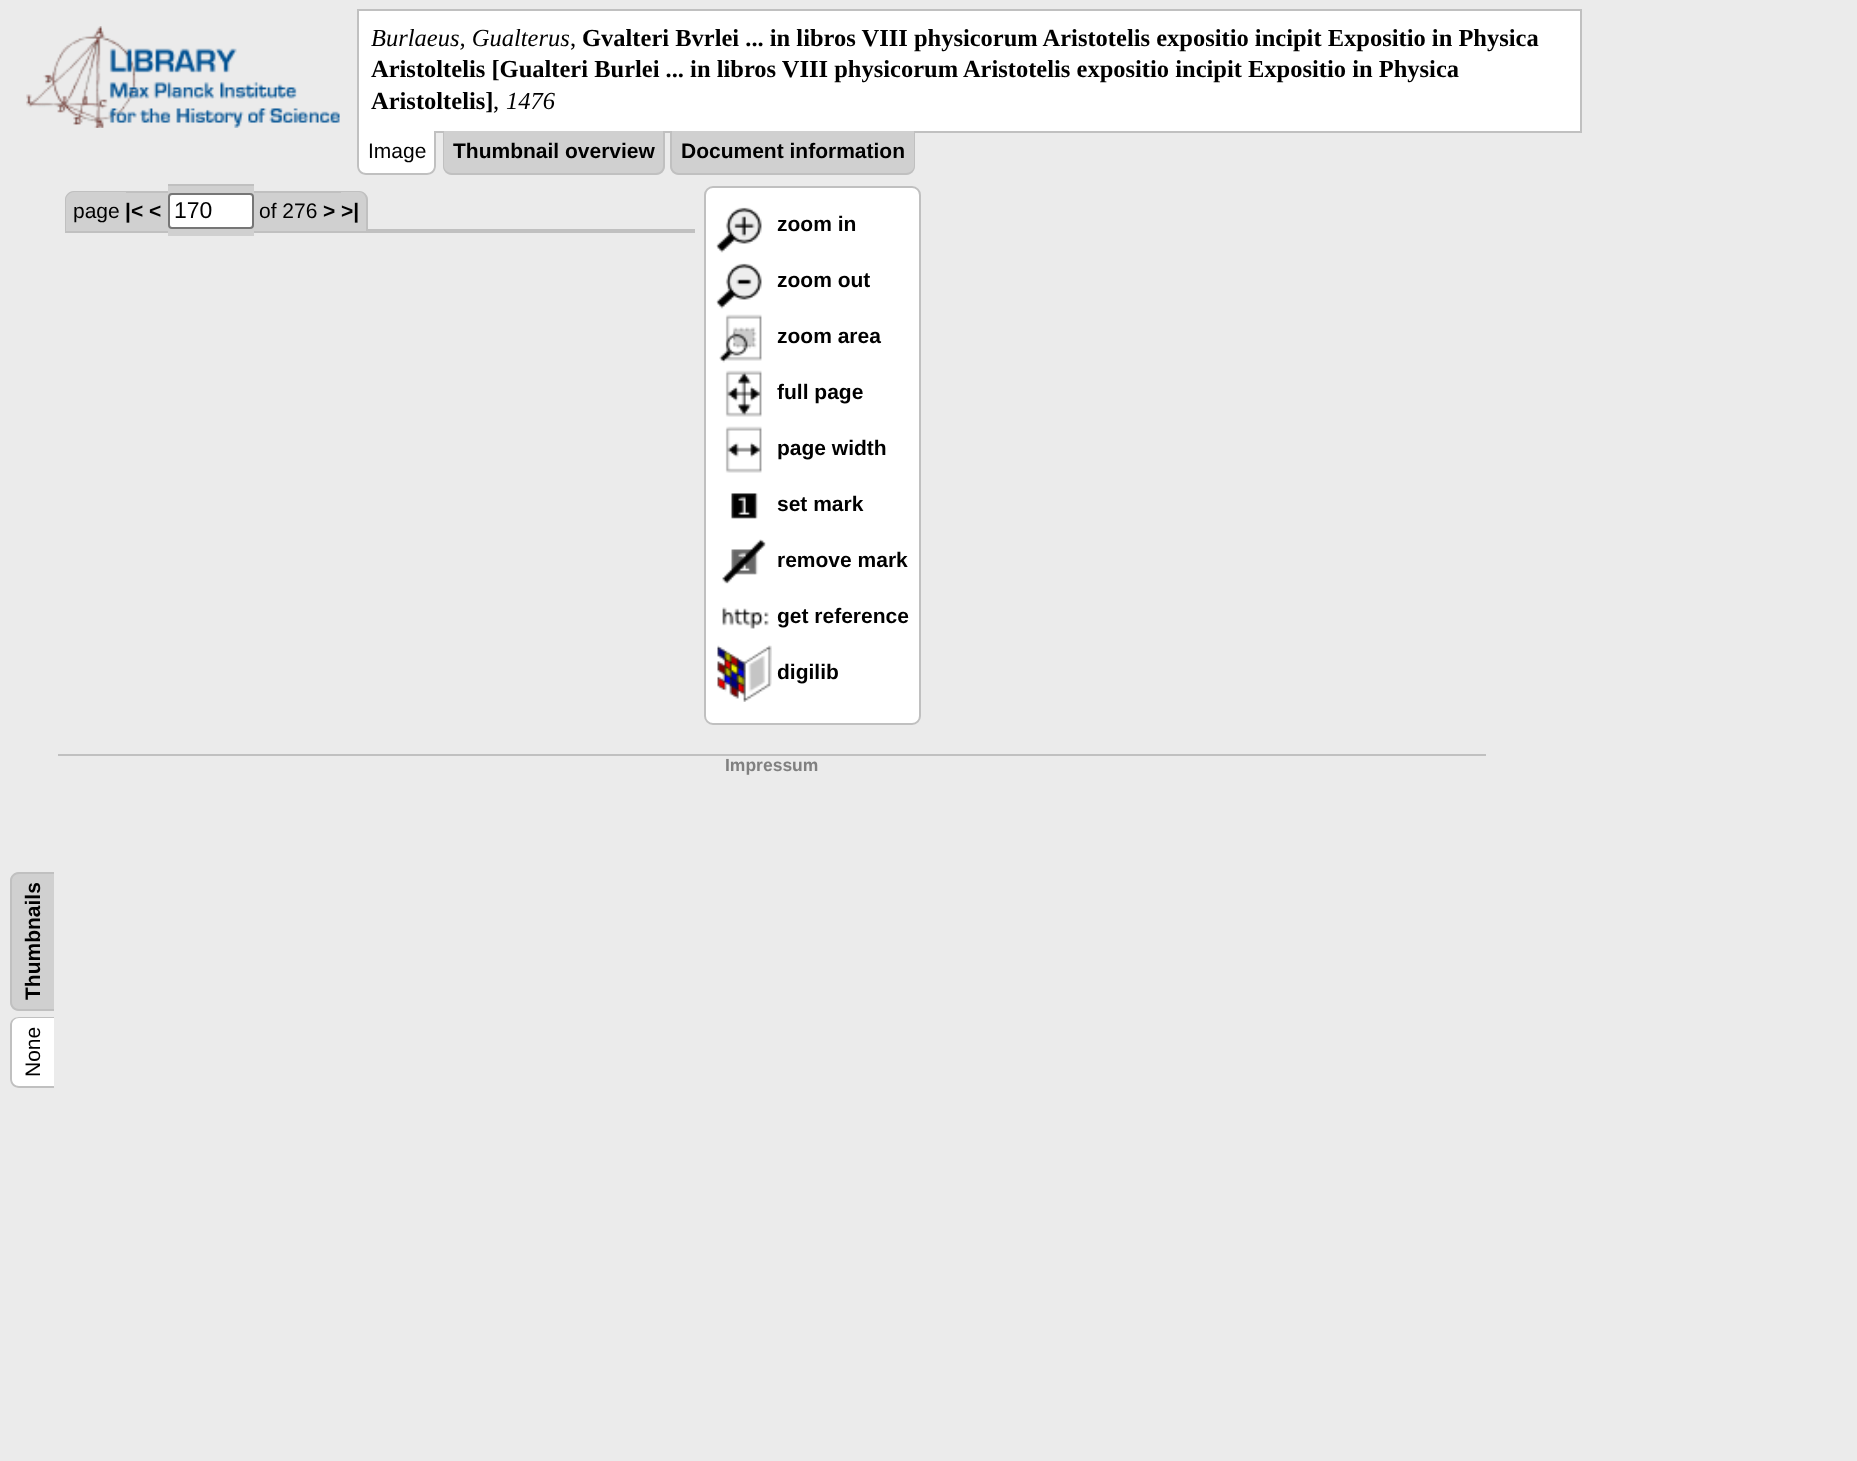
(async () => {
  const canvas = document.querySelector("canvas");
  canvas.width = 1857;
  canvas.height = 1461;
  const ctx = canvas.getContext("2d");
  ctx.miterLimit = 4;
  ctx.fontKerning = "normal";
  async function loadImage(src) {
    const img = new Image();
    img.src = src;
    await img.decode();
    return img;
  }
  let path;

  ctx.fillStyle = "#ebebeb";
  ctx.fillRect(0, 0, 1857, 1461);
  ctx.drawImage(await loadImage("img/1.png"), 26, 26, 314, 102);
  ctx.fillStyle = "#ffffff";
  ctx.beginPath();
  ctx.rect(358, 10, 1223, 122);
  ctx.fill();
  ctx.strokeStyle = "#c0c0c0";
  ctx.lineWidth = 2;
  ctx.stroke();
  ctx.beginPath();
  ctx.roundRect(357, 131, 79, 44, [0, 0, 9, 9]);
  ctx.fill();
  ctx.fillStyle = "#c0c0c0";
  path = new Path2D("M357 131H436V166C436 171 432 175 427 175H366C361 175 357 171 357 166ZM359 131H434V166C434 170 431 173 427 173H366C362 173 359 170 359 166Z");
  ctx.fill(path, "evenodd");
  ctx.fillStyle = "#d0d0d0";
  ctx.beginPath();
  ctx.roundRect(443, 131, 222, 44, [0, 0, 9, 9]);
  ctx.fill();
  ctx.fillStyle = "#c0c0c0";
  path = new Path2D("M443 131H665V166C665 171 661 175 656 175H452C447 175 443 171 443 166ZM444 131H663V166C663 170 660 173 656 173H452C448 173 444 170 444 166Z");
  ctx.fill(path, "evenodd");
  ctx.fillStyle = "#d0d0d0";
  ctx.beginPath();
  ctx.roundRect(670, 131, 245, 44, [0, 0, 9, 9]);
  ctx.fill();
  ctx.fillStyle = "#c0c0c0";
  path = new Path2D("M670 131H915V166C915 171 911 175 906 175H679C674 175 670 171 670 166ZM672 131H914V166C914 170 910 173 906 173H679C675 173 672 170 672 166Z");
  ctx.fill(path, "evenodd");
  ctx.fillRect(65, 229, 630, 4);
  ctx.fillStyle = "#d0d0d0";
  ctx.beginPath();
  ctx.roundRect(65, 191, 61, 40, [9, 0, 0, 0]);
  ctx.fill();
  ctx.fillStyle = "#c0c0c0";
  path = new Path2D("M74 191H126V231H65V200C65 195 69 191 74 191ZM74 192H126V231H66V200C66 196 70 192 74 192Z");
  ctx.fill(path, "evenodd");
  for (const [x, y, w, h, color] of [
    [126, 193, 18, 38, "#d0d0d0"],
    [126, 191, 18, 2, "#c0c0c0"],
    [144, 191, 5, 40, "#d0d0d0"],
    [144, 191, 17, 2, "#c0c0c0"],
    [149, 193, 12, 38, "#d0d0d0"],
    [161, 191, 7, 40, "#d0d0d0"],
    [161, 191, 7, 2, "#c0c0c0"],
    [168, 186, 86, 50, "#d0d0d0"],
    [168, 184, 86, 2, "#c0c0c0"],
    [254, 191, 5, 40, "#d0d0d0"],
    [254, 191, 82, 2, "#c0c0c0"],
    [259, 193, 77, 38, "#d0d0d0"],
    [336, 191, 5, 40, "#d0d0d0"],
    [336, 191, 5, 2, "#c0c0c0"],
  ]) {
    ctx.fillStyle = color;
    ctx.fillRect(x, y, w, h);
  }
  ctx.fillStyle = "#d0d0d0";
  ctx.beginPath();
  ctx.roundRect(341, 191, 27, 40, [0, 9, 0, 0]);
  ctx.fill();
  ctx.fillStyle = "#c0c0c0";
  path = new Path2D("M341 191H359C364 191 368 195 368 200V231H341ZM341 192H359C363 192 366 196 366 200V231H341Z");
  ctx.fill(path, "evenodd");
  ctx.fillStyle = "#ffffff";
  ctx.beginPath();
  ctx.roundRect(169, 194, 84, 34, 3);
  ctx.fill();
  ctx.strokeStyle = "#767676";
  ctx.stroke();
  ctx.beginPath();
  ctx.roundRect(705, 187, 215, 537, 8);
  ctx.fill();
  ctx.strokeStyle = "#c0c0c0";
  ctx.stroke();
  ctx.drawImage(await loadImage("img/2.png"), 716, 207, 46, 46);
  ctx.drawImage(await loadImage("img/3.png"), 716, 263, 46, 46);
  ctx.drawImage(await loadImage("img/4.png"), 719, 314, 43, 49);
  ctx.drawImage(await loadImage("img/5.png"), 725, 370, 37, 47);
  ctx.drawImage(await loadImage("img/6.png"), 725, 426, 37, 47);
  ctx.drawImage(await loadImage("img/7.png"), 731, 493, 27, 26);
  ctx.drawImage(await loadImage("img/8.png"), 722, 539, 44, 45);
  ctx.drawImage(await loadImage("img/9.png"), 722, 607, 47, 22);
  ctx.drawImage(await loadImage("img/10.png"), 717, 645, 55, 57);
  ctx.fillStyle = "#d0d0d0";
  path = new Path2D("M10 1002V881C10 876 14 872 19 872H54V1011H19C14 1011 10 1007 10 1002Z");
  ctx.fill(path);
  ctx.fillStyle = "#c0c0c0";
  path = new Path2D("M10 1002V881C10 876 14 872 19 872H54V1011H19C14 1011 10 1007 10 1002ZM12 1002V881C12 877 15 874 19 874H54V1009H19C15 1009 12 1006 12 1002Z");
  ctx.fill(path, "evenodd");
  ctx.fillStyle = "#ffffff";
  path = new Path2D("M10 1079V1025C10 1020 14 1017 19 1017H54V1088H19C14 1088 10 1084 10 1079Z");
  ctx.fill(path);
  ctx.fillStyle = "#c0c0c0";
  path = new Path2D("M10 1079V1025C10 1020 14 1017 19 1017H54V1088H19C14 1088 10 1084 10 1079ZM12 1079V1025C12 1021 15 1018 19 1018H54V1086H19C15 1086 12 1083 12 1079Z");
  ctx.fill(path, "evenodd");
  ctx.fillRect(58, 754, 1428, 2);
  ctx.font = "italic 24.5px Liberation Serif";
  ctx.fillStyle = "#000000";
  ctx.fillText("Burlaeus, Gualterus", 371, 46);
  ctx.font = "24.5px Liberation Serif";
  ctx.fillText(",", 570, 46);
  ctx.font = "bold 24.5px Liberation Serif";
  for (const [text, x, y] of [
    ["Gvalteri Bvrlei ... in libros VIII physicorum Aristotelis expositio incipit Expositio in Physica", 582, 46],
    ["Aristoltelis [Gualteri Burlei ... in libros VIII physicorum Aristotelis expositio incipit Expositio in Physica", 371, 77],
    ["Aristoltelis]", 371, 109],
  ]) {
    ctx.fillText(text, x, y);
  }
  ctx.font = "24.5px Liberation Serif";
  ctx.fillText(",", 493, 109);
  ctx.font = "italic 24.5px Liberation Serif";
  ctx.fillText("1476", 506, 109);
  ctx.font = "21px Liberation Sans";
  ctx.fillText("Image", 368, 158);
  ctx.font = "bold 21px Liberation Sans";
  ctx.fillText("Thumbnail overview", 453, 158);
  ctx.fillText("Document information", 681, 158);
  ctx.font = "21px Liberation Sans";
  ctx.fillText("page", 73, 218);
  ctx.font = "bold 21px Liberation Sans";
  ctx.fillText("|< <", 125, 218);
  ctx.font = "23px Liberation Sans";
  ctx.fillText("170", 174, 218);
  ctx.font = "21px Liberation Sans";
  ctx.fillText("of 276", 259, 218);
  ctx.font = "bold 21px Liberation Sans";
  for (const [text, x, y] of [
    ["> >|", 323, 218],
    ["zoom in", 777, 231],
    ["zoom out", 777, 287],
    ["zoom area", 777, 343],
    ["full page", 777, 399],
    ["page width", 777, 455],
    ["set mark", 777, 511],
    ["remove mark", 777, 567],
    ["get reference", 777, 623],
    ["digilib", 777, 679],
  ]) {
    ctx.fillText(text, x, y);
  }
  ctx.save();
  ctx.translate(40, 1000);
  ctx.rotate(-90 * Math.PI / 180);
  ctx.fillText("Thumbnails", 0, 0);
  ctx.restore();
  ctx.font = "21px Liberation Sans";
  ctx.save();
  ctx.translate(40, 1077);
  ctx.rotate(-90 * Math.PI / 180);
  ctx.fillText("None", 0, 0);
  ctx.restore();
  ctx.font = "bold 17.5px Liberation Sans";
  ctx.fillStyle = "#808080";
  ctx.fillText("Impressum", 725, 771);
})();
